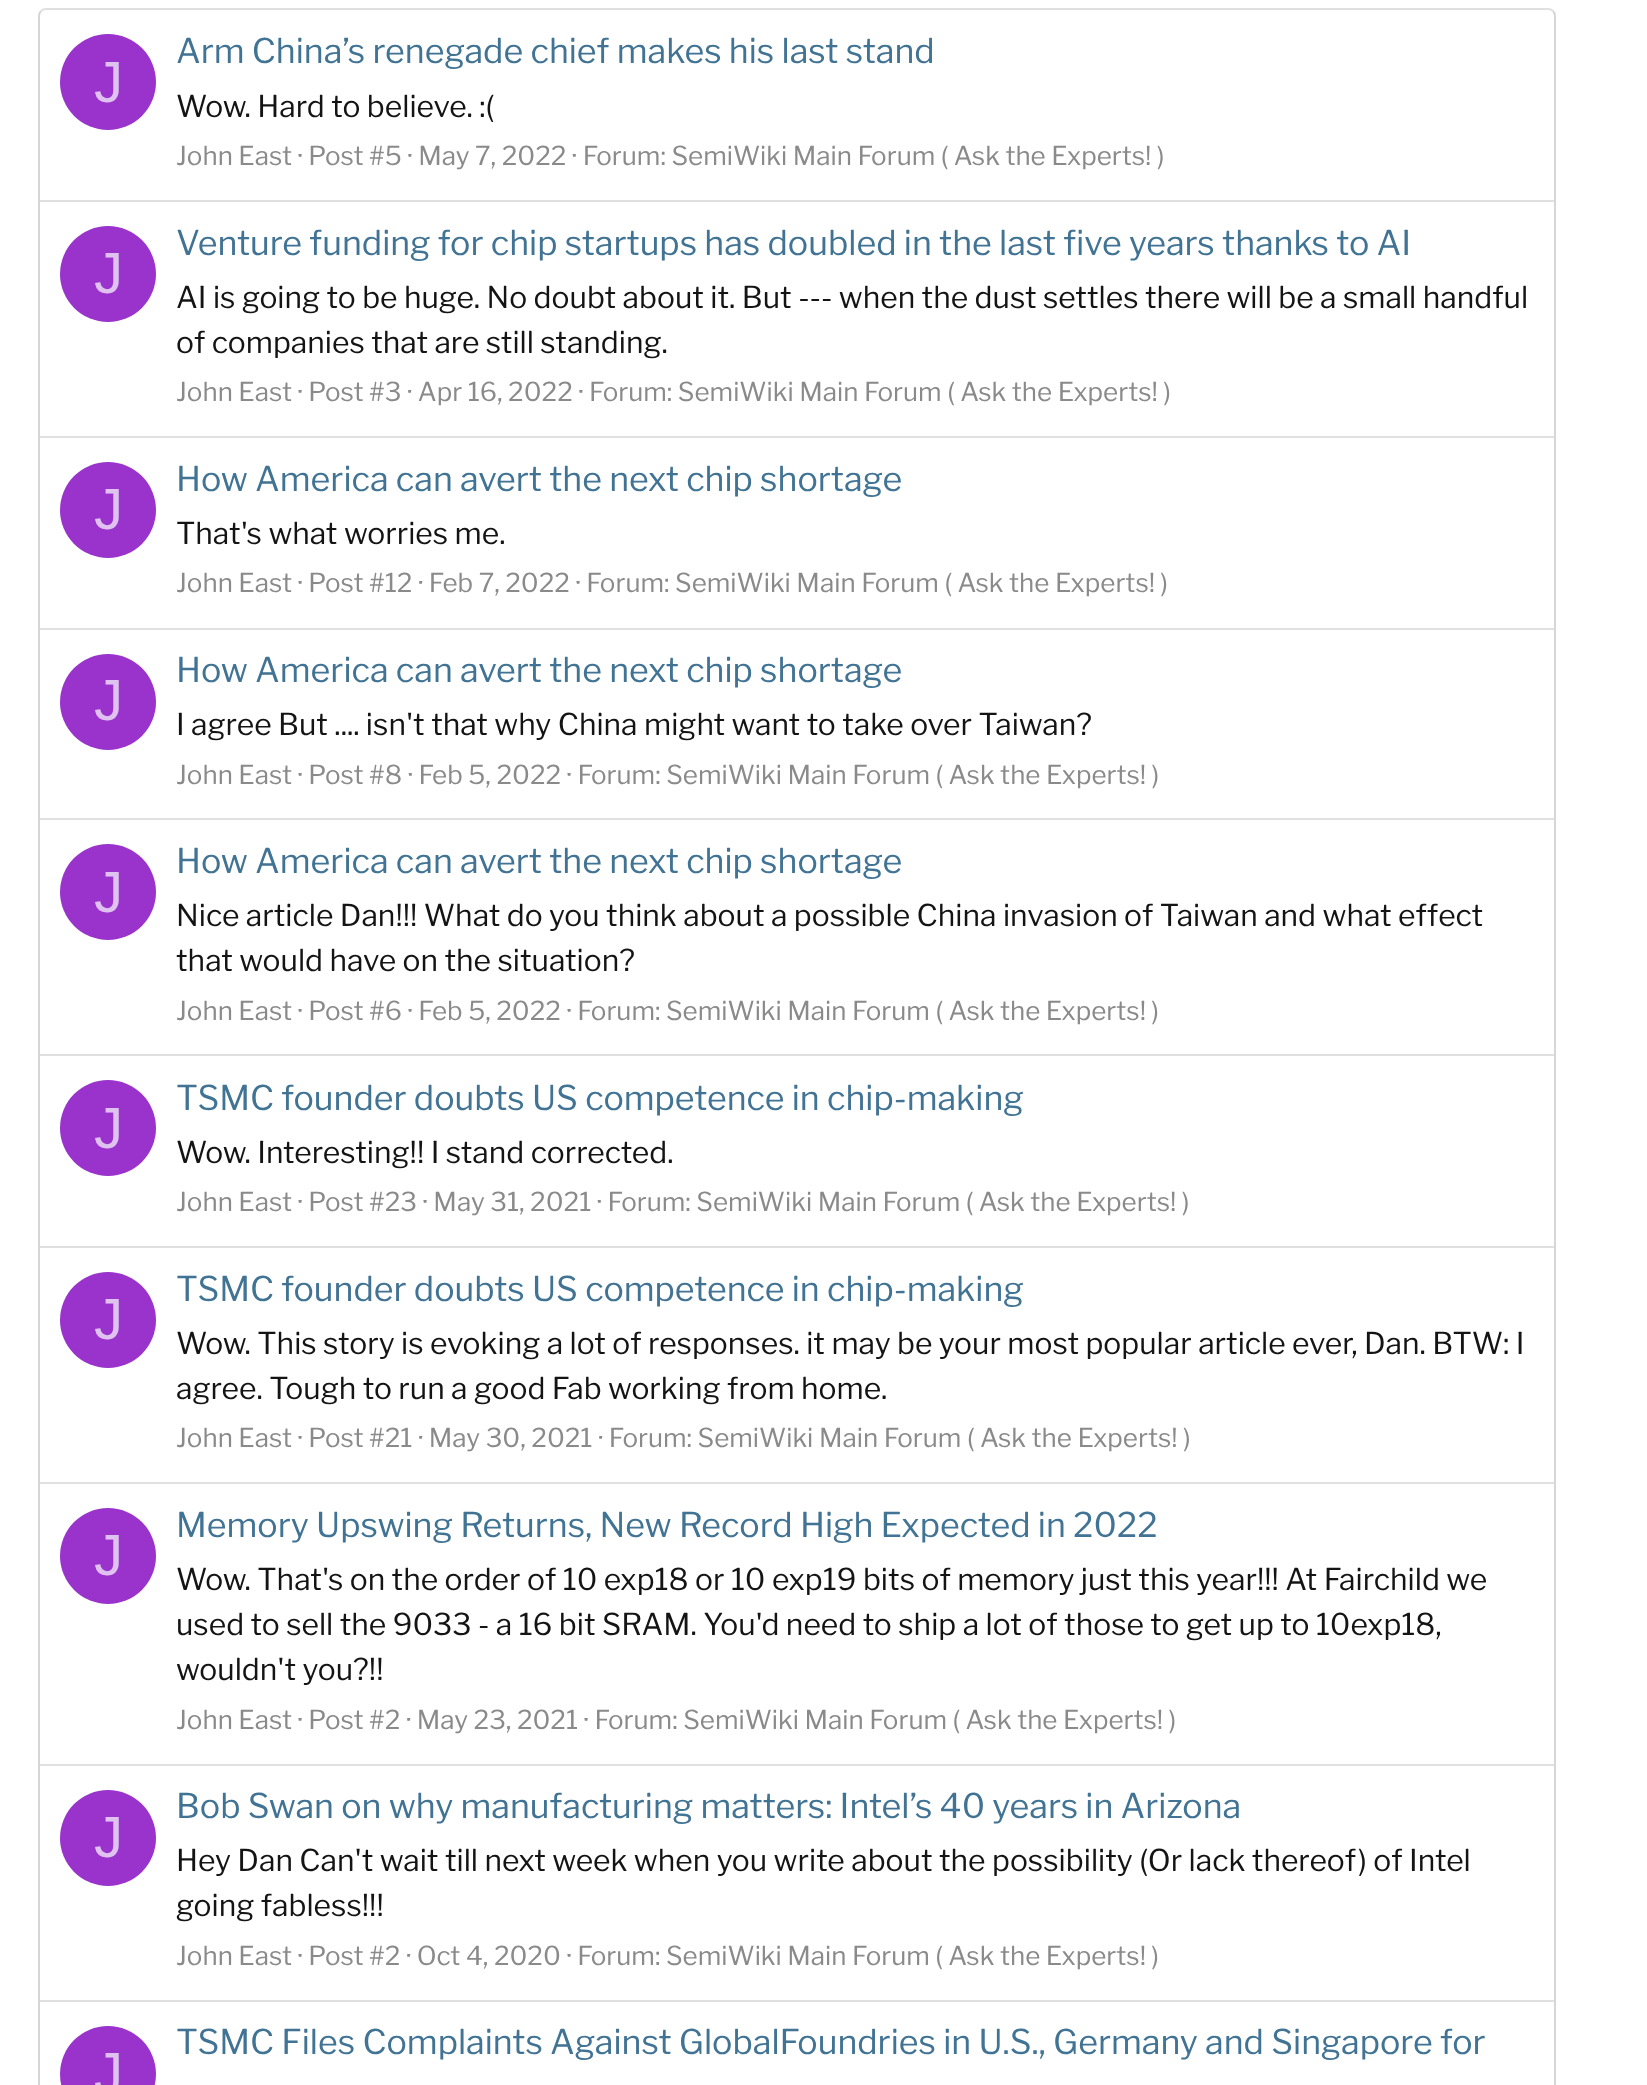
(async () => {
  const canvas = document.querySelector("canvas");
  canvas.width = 1647;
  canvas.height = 2085;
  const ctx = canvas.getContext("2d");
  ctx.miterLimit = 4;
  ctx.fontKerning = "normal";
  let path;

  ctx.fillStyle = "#ffffff";
  ctx.fillRect(0, 0, 1647, 2085);
  path = new Path2D("M41 11C42.5 9.5 44 9 46 9H1548C1550 9 1551.5 9.5 1553 11");
  ctx.strokeStyle = "#e0e0e0";
  ctx.lineWidth = 2;
  ctx.stroke(path);
  path = new Path2D("M1553 11C1554.5 12.5 1555 14 1555 16V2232C1555 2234 1554.5 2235.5 1553 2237");
  ctx.strokeStyle = "#d6d6d6";
  ctx.stroke(path);
  path = new Path2D("M41 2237C39.5 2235.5 39 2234 39 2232V16C39 14 39.5 12.5 41 11");
  ctx.stroke(path);
  ctx.fillStyle = "#9933cc";
  ctx.beginPath();
  ctx.arc(108, 82, 48, 0, Math.PI * 2);
  ctx.fill();
  ctx.fillStyle = "#e0e0e0";
  ctx.fillRect(40, 200, 1514, 2);
  ctx.fillStyle = "#9933cc";
  ctx.beginPath();
  ctx.arc(108, 274, 48, 0, Math.PI * 2);
  ctx.fill();
  ctx.fillStyle = "#e0e0e0";
  ctx.fillRect(40, 436, 1514, 2);
  ctx.fillStyle = "#9933cc";
  ctx.beginPath();
  ctx.arc(108, 510, 48, 0, Math.PI * 2);
  ctx.fill();
  ctx.fillStyle = "#e0e0e0";
  ctx.fillRect(40, 628, 1514, 2);
  ctx.fillStyle = "#9933cc";
  ctx.beginPath();
  ctx.arc(108, 702, 48, 0, Math.PI * 2);
  ctx.fill();
  ctx.fillStyle = "#e0e0e0";
  ctx.fillRect(40, 818, 1514, 2);
  ctx.fillStyle = "#9933cc";
  ctx.beginPath();
  ctx.arc(108, 892, 48, 0, Math.PI * 2);
  ctx.fill();
  ctx.fillStyle = "#e0e0e0";
  ctx.fillRect(40, 1054, 1514, 2);
  ctx.fillStyle = "#9933cc";
  ctx.beginPath();
  ctx.arc(108, 1128, 48, 0, Math.PI * 2);
  ctx.fill();
  ctx.fillStyle = "#e0e0e0";
  ctx.fillRect(40, 1246, 1514, 2);
  ctx.fillStyle = "#9933cc";
  ctx.beginPath();
  ctx.arc(108, 1320, 48, 0, Math.PI * 2);
  ctx.fill();
  ctx.fillStyle = "#e0e0e0";
  ctx.fillRect(40, 1482, 1514, 2);
  ctx.fillStyle = "#9933cc";
  ctx.beginPath();
  ctx.arc(108, 1556, 48, 0, Math.PI * 2);
  ctx.fill();
  ctx.fillStyle = "#e0e0e0";
  ctx.fillRect(40, 1764, 1514, 2);
  ctx.fillStyle = "#9933cc";
  ctx.beginPath();
  ctx.arc(108, 1838, 48, 0, Math.PI * 2);
  ctx.fill();
  ctx.fillStyle = "#e0e0e0";
  ctx.fillRect(40, 2000, 1514, 2);
  ctx.fillStyle = "#9933cc";
  ctx.beginPath();
  ctx.arc(108, 2074, 48, 0, Math.PI * 2);
  ctx.fill();
  ctx.font = "58px Liberation Sans";
  ctx.fillStyle = "#e0c2f0";
  ctx.fillText("J", 94, 102);
  ctx.font = "34px Libre Franklin";
  ctx.fillStyle = "#417394";
  ctx.fillText("Arm China’s renegade chief makes his last stand", 176, 63);
  ctx.font = "30px Libre Franklin";
  ctx.fillStyle = "#141414";
  ctx.fillText("Wow. Hard to believe. :(", 176, 117);
  ctx.font = "26px Libre Franklin";
  ctx.fillStyle = "#8a8a8a";
  ctx.fillText("John East · Post #5 · May 7, 2022 · Forum: SemiWiki Main Forum ( Ask the Experts! )", 176, 165);
  ctx.font = "58px Liberation Sans";
  ctx.fillStyle = "#e0c2f0";
  ctx.fillText("J", 94, 293);
  ctx.font = "34px Libre Franklin";
  ctx.fillStyle = "#417394";
  ctx.fillText("Venture funding for chip startups has doubled in the last five years thanks to AI", 176, 255);
  ctx.font = "30px Libre Franklin";
  ctx.fillStyle = "#141414";
  ctx.fillText("AI is going to be huge. No doubt about it. But --- when the dust settles there will be a small handful", 176, 308);
  ctx.fillText("of companies that are still standing.", 176, 353);
  ctx.font = "26px Libre Franklin";
  ctx.fillStyle = "#8a8a8a";
  ctx.fillText("John East · Post #3 · Apr 16, 2022 · Forum: SemiWiki Main Forum ( Ask the Experts! )", 176, 401);
  ctx.font = "58px Liberation Sans";
  ctx.fillStyle = "#e0c2f0";
  ctx.fillText("J", 94, 529);
  ctx.font = "34px Libre Franklin";
  ctx.fillStyle = "#417394";
  ctx.fillText("How America can avert the next chip shortage", 176, 491);
  ctx.font = "30px Libre Franklin";
  ctx.fillStyle = "#141414";
  ctx.fillText("That's what worries me.", 176, 544);
  ctx.font = "26px Libre Franklin";
  ctx.fillStyle = "#8a8a8a";
  ctx.fillText("John East · Post #12 · Feb 7, 2022 · Forum: SemiWiki Main Forum ( Ask the Experts! )", 176, 592);
  ctx.font = "58px Liberation Sans";
  ctx.fillStyle = "#e0c2f0";
  ctx.fillText("J", 94, 720);
  ctx.font = "34px Libre Franklin";
  ctx.fillStyle = "#417394";
  ctx.fillText("How America can avert the next chip shortage", 176, 682);
  ctx.font = "30px Libre Franklin";
  ctx.fillStyle = "#141414";
  ctx.fillText("I agree But .... isn't that why China might want to take over Taiwan?", 176, 735);
  ctx.font = "26px Libre Franklin";
  ctx.fillStyle = "#8a8a8a";
  ctx.fillText("John East · Post #8 · Feb 5, 2022 · Forum: SemiWiki Main Forum ( Ask the Experts! )", 176, 784);
  ctx.font = "58px Liberation Sans";
  ctx.fillStyle = "#e0c2f0";
  ctx.fillText("J", 94, 912);
  ctx.font = "34px Libre Franklin";
  ctx.fillStyle = "#417394";
  ctx.fillText("How America can avert the next chip shortage", 176, 873);
  ctx.font = "30px Libre Franklin";
  ctx.fillStyle = "#141414";
  ctx.fillText("Nice article Dan!!! What do you think about a possible China invasion of Taiwan and what effect", 176, 926);
  ctx.fillText("that would have on the situation?", 176, 971);
  ctx.font = "26px Libre Franklin";
  ctx.fillStyle = "#8a8a8a";
  ctx.fillText("John East · Post #6 · Feb 5, 2022 · Forum: SemiWiki Main Forum ( Ask the Experts! )", 176, 1020);
  ctx.font = "58px Liberation Sans";
  ctx.fillStyle = "#e0c2f0";
  ctx.fillText("J", 94, 1148);
  ctx.font = "34px Libre Franklin";
  ctx.fillStyle = "#417394";
  ctx.fillText("TSMC founder doubts US competence in chip-making", 176, 1110);
  ctx.font = "30px Libre Franklin";
  ctx.fillStyle = "#141414";
  ctx.fillText("Wow. Interesting!! I stand corrected.", 176, 1163);
  ctx.font = "26px Libre Franklin";
  ctx.fillStyle = "#8a8a8a";
  ctx.fillText("John East · Post #23 · May 31, 2021 · Forum: SemiWiki Main Forum ( Ask the Experts! )", 176, 1211);
  ctx.font = "58px Liberation Sans";
  ctx.fillStyle = "#e0c2f0";
  ctx.fillText("J", 94, 1339);
  ctx.font = "34px Libre Franklin";
  ctx.fillStyle = "#417394";
  ctx.fillText("TSMC founder doubts US competence in chip-making", 176, 1301);
  ctx.font = "30px Libre Franklin";
  ctx.fillStyle = "#141414";
  ctx.fillText("Wow. This story is evoking a lot of responses. it may be your most popular article ever, Dan. BTW: I", 176, 1354);
  ctx.fillText("agree. Tough to run a good Fab working from home.", 176, 1399);
  ctx.font = "26px Libre Franklin";
  ctx.fillStyle = "#8a8a8a";
  ctx.fillText("John East · Post #21 · May 30, 2021 · Forum: SemiWiki Main Forum ( Ask the Experts! )", 176, 1447);
  ctx.font = "58px Liberation Sans";
  ctx.fillStyle = "#e0c2f0";
  ctx.fillText("J", 94, 1575);
  ctx.font = "34px Libre Franklin";
  ctx.fillStyle = "#417394";
  ctx.fillText("Memory Upswing Returns, New Record High Expected in 2022", 176, 1537);
  ctx.font = "30px Libre Franklin";
  ctx.fillStyle = "#141414";
  for (const [text, x, y] of [
    ["Wow. That's on the order of 10 exp18 or 10 exp19 bits of memory just this year!!! At Fairchild we", 176, 1590],
    ["used to sell the 9033 - a 16 bit SRAM. You'd need to ship a lot of those to get up to 10exp18,", 176, 1635],
    ["wouldn't you?!!", 176, 1680],
  ]) {
    ctx.fillText(text, x, y);
  }
  ctx.font = "26px Libre Franklin";
  ctx.fillStyle = "#8a8a8a";
  ctx.fillText("John East · Post #2 · May 23, 2021 · Forum: SemiWiki Main Forum ( Ask the Experts! )", 176, 1729);
  ctx.font = "58px Liberation Sans";
  ctx.fillStyle = "#e0c2f0";
  ctx.fillText("J", 94, 1857);
  ctx.font = "34px Libre Franklin";
  ctx.fillStyle = "#417394";
  ctx.fillText("Bob Swan on why manufacturing matters: Intel’s 40 years in Arizona", 176, 1818);
  ctx.font = "30px Libre Franklin";
  ctx.fillStyle = "#141414";
  ctx.fillText("Hey Dan Can't wait till next week when you write about the possibility (Or lack thereof) of Intel", 176, 1871);
  ctx.fillText("going fabless!!!", 176, 1916);
  ctx.font = "26px Libre Franklin";
  ctx.fillStyle = "#8a8a8a";
  ctx.fillText("John East · Post #2 · Oct 4, 2020 · Forum: SemiWiki Main Forum ( Ask the Experts! )", 176, 1965);
  ctx.font = "34px Libre Franklin";
  ctx.fillStyle = "#417394";
  ctx.fillText("TSMC Files Complaints Against GlobalFoundries in U.S., Germany and Singapore for", 176, 2054);
  ctx.font = "58px Liberation Sans";
  ctx.fillStyle = "#e0c2f0";
  ctx.fillText("J", 94, 2093);
})();
